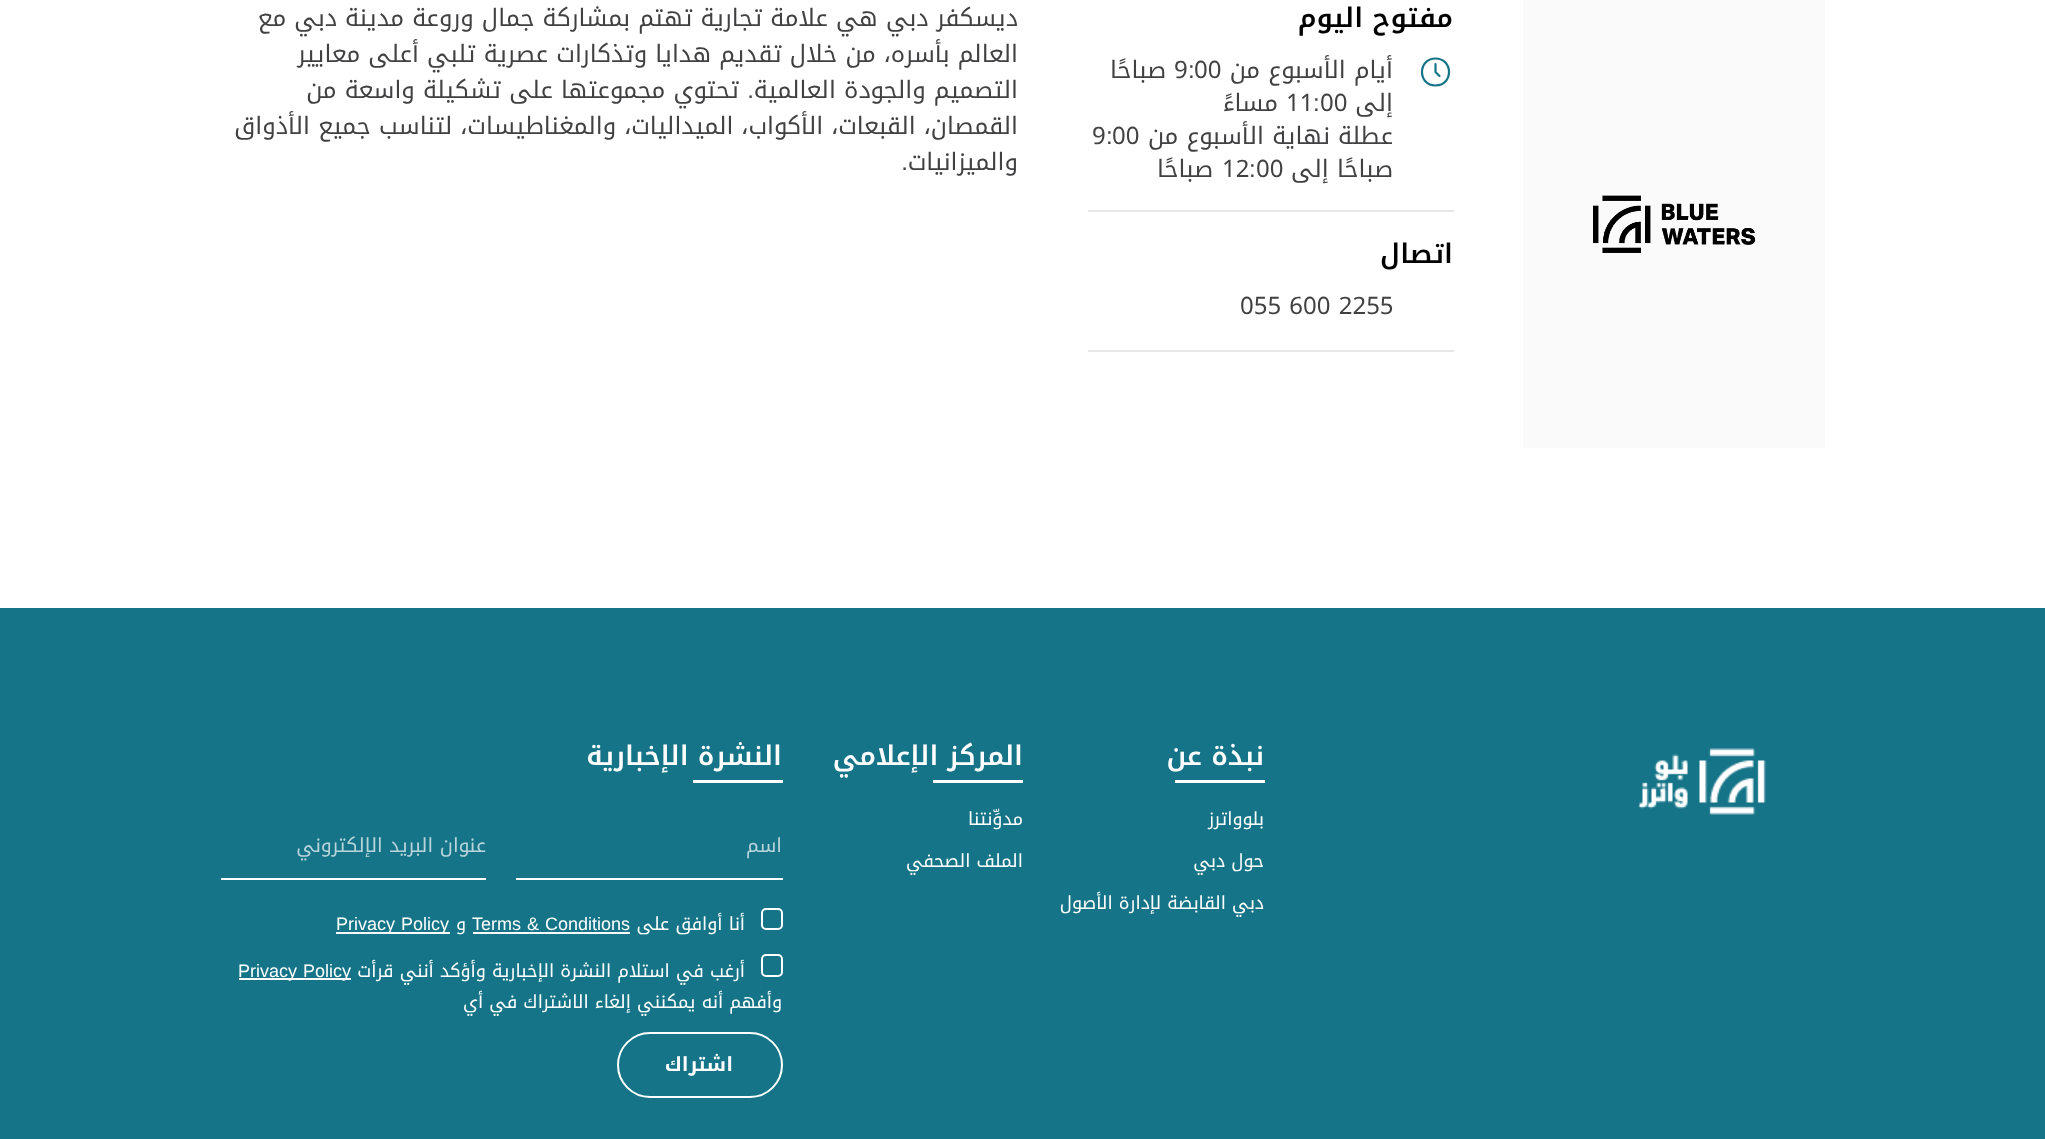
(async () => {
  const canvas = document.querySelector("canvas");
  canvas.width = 2045;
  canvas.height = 1139;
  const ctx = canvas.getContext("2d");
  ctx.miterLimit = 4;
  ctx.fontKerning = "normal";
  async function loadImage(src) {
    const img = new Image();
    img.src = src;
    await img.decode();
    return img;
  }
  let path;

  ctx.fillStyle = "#ffffff";
  ctx.fillRect(0, 0, 2045, 1139);
  ctx.drawImage(await loadImage("img/1.png"), 1523, 0, 302, 448);
  ctx.fillStyle = "#e8e6e6";
  ctx.fillRect(1088, 210, 366, 2);
  path = new Path2D("M1435.5 85.5C1453.5 85.5 1453.5 58.5 1435.5 58.5C1417.5 58.5 1417.5 85.5 1435.5 85.5ZM1435.5 64V72L1439.5 76");
  ctx.strokeStyle = "#157487";
  ctx.lineWidth = 2.2;
  ctx.lineCap = "round";
  ctx.lineJoin = "round";
  ctx.stroke(path);
  ctx.fillRect(1088, 350, 366, 2);
  ctx.fillStyle = "#157487";
  ctx.fillRect(0, 608, 2045, 531);
  ctx.drawImage(await loadImage("img/2.png"), 1638, 748, 128, 67);
  for (const [x, y, w, h, color] of [
    [1175, 780, 90, 3, "#ffffff"],
    [933, 780, 90, 3, "#ffffff"],
    [693, 780, 90, 3, "#ffffff"],
    [516, 878, 267, 2, "#ffffff"],
    [221, 878, 265, 2, "#ffffff"],
  ]) {
    ctx.fillStyle = color;
    ctx.fillRect(x, y, w, h);
  }
  ctx.beginPath();
  ctx.roundRect(762, 909, 20, 20, 4);
  ctx.strokeStyle = "#ffffff";
  ctx.lineWidth = 2;
  ctx.lineJoin = "miter";
  ctx.stroke();
  ctx.fillRect(473, 932, 157, 2);
  ctx.fillRect(336, 932, 114, 2);
  ctx.beginPath();
  ctx.roundRect(762, 955, 20, 21, 4);
  ctx.stroke();
  ctx.fillRect(239, 978, 112, 2);
  ctx.beginPath();
  ctx.roundRect(618, 1033, 164, 64, 32);
  ctx.stroke();
  ctx.direction = "rtl";
  ctx.font = "600 27px Noto Kufi Arabic";
  ctx.fillStyle = "#000000";
  ctx.fillText("مفتوح اليوم", 1453, 27);
  ctx.font = "24px Noto Kufi Arabic";
  ctx.fillStyle = "#414042";
  ctx.fillText("أيام الأسبوع من", 1393, 78);
  ctx.direction = "ltr";
  ctx.fillText("00", 1194, 78);
  ctx.font = "24px Liberation Sans";
  ctx.fillText(":", 1188, 78);
  ctx.font = "24px Noto Kufi Arabic";
  ctx.fillText("9", 1174, 78);
  ctx.direction = "rtl";
  ctx.fillText("صباحًا", 1166, 78);
  ctx.fillText("إلى", 1393, 111);
  ctx.direction = "ltr";
  ctx.fillText("00", 1320, 111);
  ctx.font = "24px Liberation Sans";
  ctx.fillText(":", 1313, 111);
  ctx.font = "24px Noto Kufi Arabic";
  ctx.fillText("11", 1286, 111);
  ctx.direction = "rtl";
  ctx.fillText("مساءً", 1278, 111);
  ctx.fillText("عطلة نهاية الأسبوع من", 1393, 144);
  ctx.direction = "ltr";
  ctx.fillText("00", 1112, 144);
  ctx.font = "24px Liberation Sans";
  ctx.fillText(":", 1106, 144);
  ctx.font = "24px Noto Kufi Arabic";
  ctx.fillText("9", 1092, 144);
  ctx.direction = "rtl";
  ctx.fillText("صباحًا إلى", 1393, 177);
  ctx.direction = "ltr";
  ctx.fillText("00", 1256, 177);
  ctx.font = "24px Liberation Sans";
  ctx.fillText(":", 1249, 177);
  ctx.font = "24px Noto Kufi Arabic";
  ctx.fillText("12", 1222, 177);
  ctx.direction = "rtl";
  ctx.fillText("صباحًا", 1213, 177);
  ctx.font = "600 27px Noto Kufi Arabic";
  ctx.fillStyle = "#000000";
  ctx.fillText("اتصال", 1453, 263);
  ctx.direction = "ltr";
  ctx.font = "24px Noto Kufi Arabic";
  ctx.fillStyle = "#414042";
  ctx.fillText("055 600 2255", 1240, 314);
  ctx.direction = "rtl";
  for (const [text, x, y] of [
    ["ديسكفر دبي هي علامة تجارية تهتم بمشاركة جمال وروعة مدينة دبي مع", 1018, 26],
    ["العالم بأسره، من خلال تقديم هدايا وتذكارات عصرية تلبي أعلى معايير", 1018, 62],
    ["التصميم والجودة العالمية", 1018, 98],
  ]) {
    ctx.fillText(text, x, y);
  }
  ctx.font = "24px Liberation Sans";
  ctx.fillText(".", 754, 98);
  ctx.font = "24px Noto Kufi Arabic";
  for (const [text, x, y] of [
    ["تحتوي مجموعتها على تشكيلة واسعة من", 739, 98],
    ["القمصان، القبعات، الأكواب، الميداليات، والمغناطيسات، لتناسب جميع الأذواق", 1018, 134],
    ["والميزانيات", 1018, 170],
  ]) {
    ctx.fillText(text, x, y);
  }
  ctx.font = "24px Liberation Sans";
  ctx.fillText(".", 908, 170);
  ctx.font = "600 27px Noto Kufi Arabic";
  ctx.fillStyle = "#ffffff";
  ctx.fillText("نبذة عن", 1264, 765);
  ctx.font = "18px Noto Kufi Arabic";
  for (const [text, x, y] of [
    ["بلوواترز", 1264, 825],
    ["حول دبي", 1264, 867],
    ["دبي القابضة لإدارة الأصول", 1264, 909],
  ]) {
    ctx.fillText(text, x, y);
  }
  ctx.font = "600 27px Noto Kufi Arabic";
  ctx.fillText("المركز الإعلامي", 1023, 765);
  ctx.font = "18px Noto Kufi Arabic";
  ctx.fillText("مدوِّنتنا", 1023, 825);
  ctx.fillText("الملف الصحفي", 1023, 867);
  ctx.font = "600 27px Noto Kufi Arabic";
  ctx.fillText("النشرة الإخبارية", 782, 765);
  ctx.font = "19.5px Noto Kufi Arabic";
  ctx.fillStyle = "#b9d5db";
  ctx.fillText("اسم", 782, 852);
  ctx.fillText("عنوان البريد الإلكتروني", 486, 852);
  ctx.font = "18px Noto Kufi Arabic";
  ctx.fillStyle = "#ffffff";
  ctx.fillText("أنا أوافق على", 745, 930);
  ctx.wordSpacing = "1px";
  ctx.direction = "ltr";
  ctx.font = "18px Liberation Sans";
  ctx.fillText("Terms & Conditions", 472, 930);
  ctx.wordSpacing = "0px";
  ctx.direction = "rtl";
  ctx.font = "18px Noto Kufi Arabic";
  ctx.fillText("و", 466, 930);
  ctx.wordSpacing = "1px";
  ctx.direction = "ltr";
  ctx.font = "18px Liberation Sans";
  ctx.fillText("Privacy Policy", 336, 930);
  ctx.wordSpacing = "0px";
  ctx.direction = "rtl";
  ctx.font = "18px Noto Kufi Arabic";
  ctx.fillText("أرغب في استلام النشرة الإخبارية وأؤكد أنني قرأت", 745, 977);
  ctx.wordSpacing = "1px";
  ctx.direction = "ltr";
  ctx.font = "18px Liberation Sans";
  ctx.fillText("Privacy Policy", 238, 977);
  ctx.wordSpacing = "0px";
  ctx.direction = "rtl";
  ctx.font = "18px Noto Kufi Arabic";
  ctx.fillText("وأفهم أنه يمكنني إلغاء الاشتراك في أي", 782, 1008);
  ctx.font = "bold 19.5px Noto Kufi Arabic";
  ctx.fillText("اشتراك", 733, 1071);
})();
